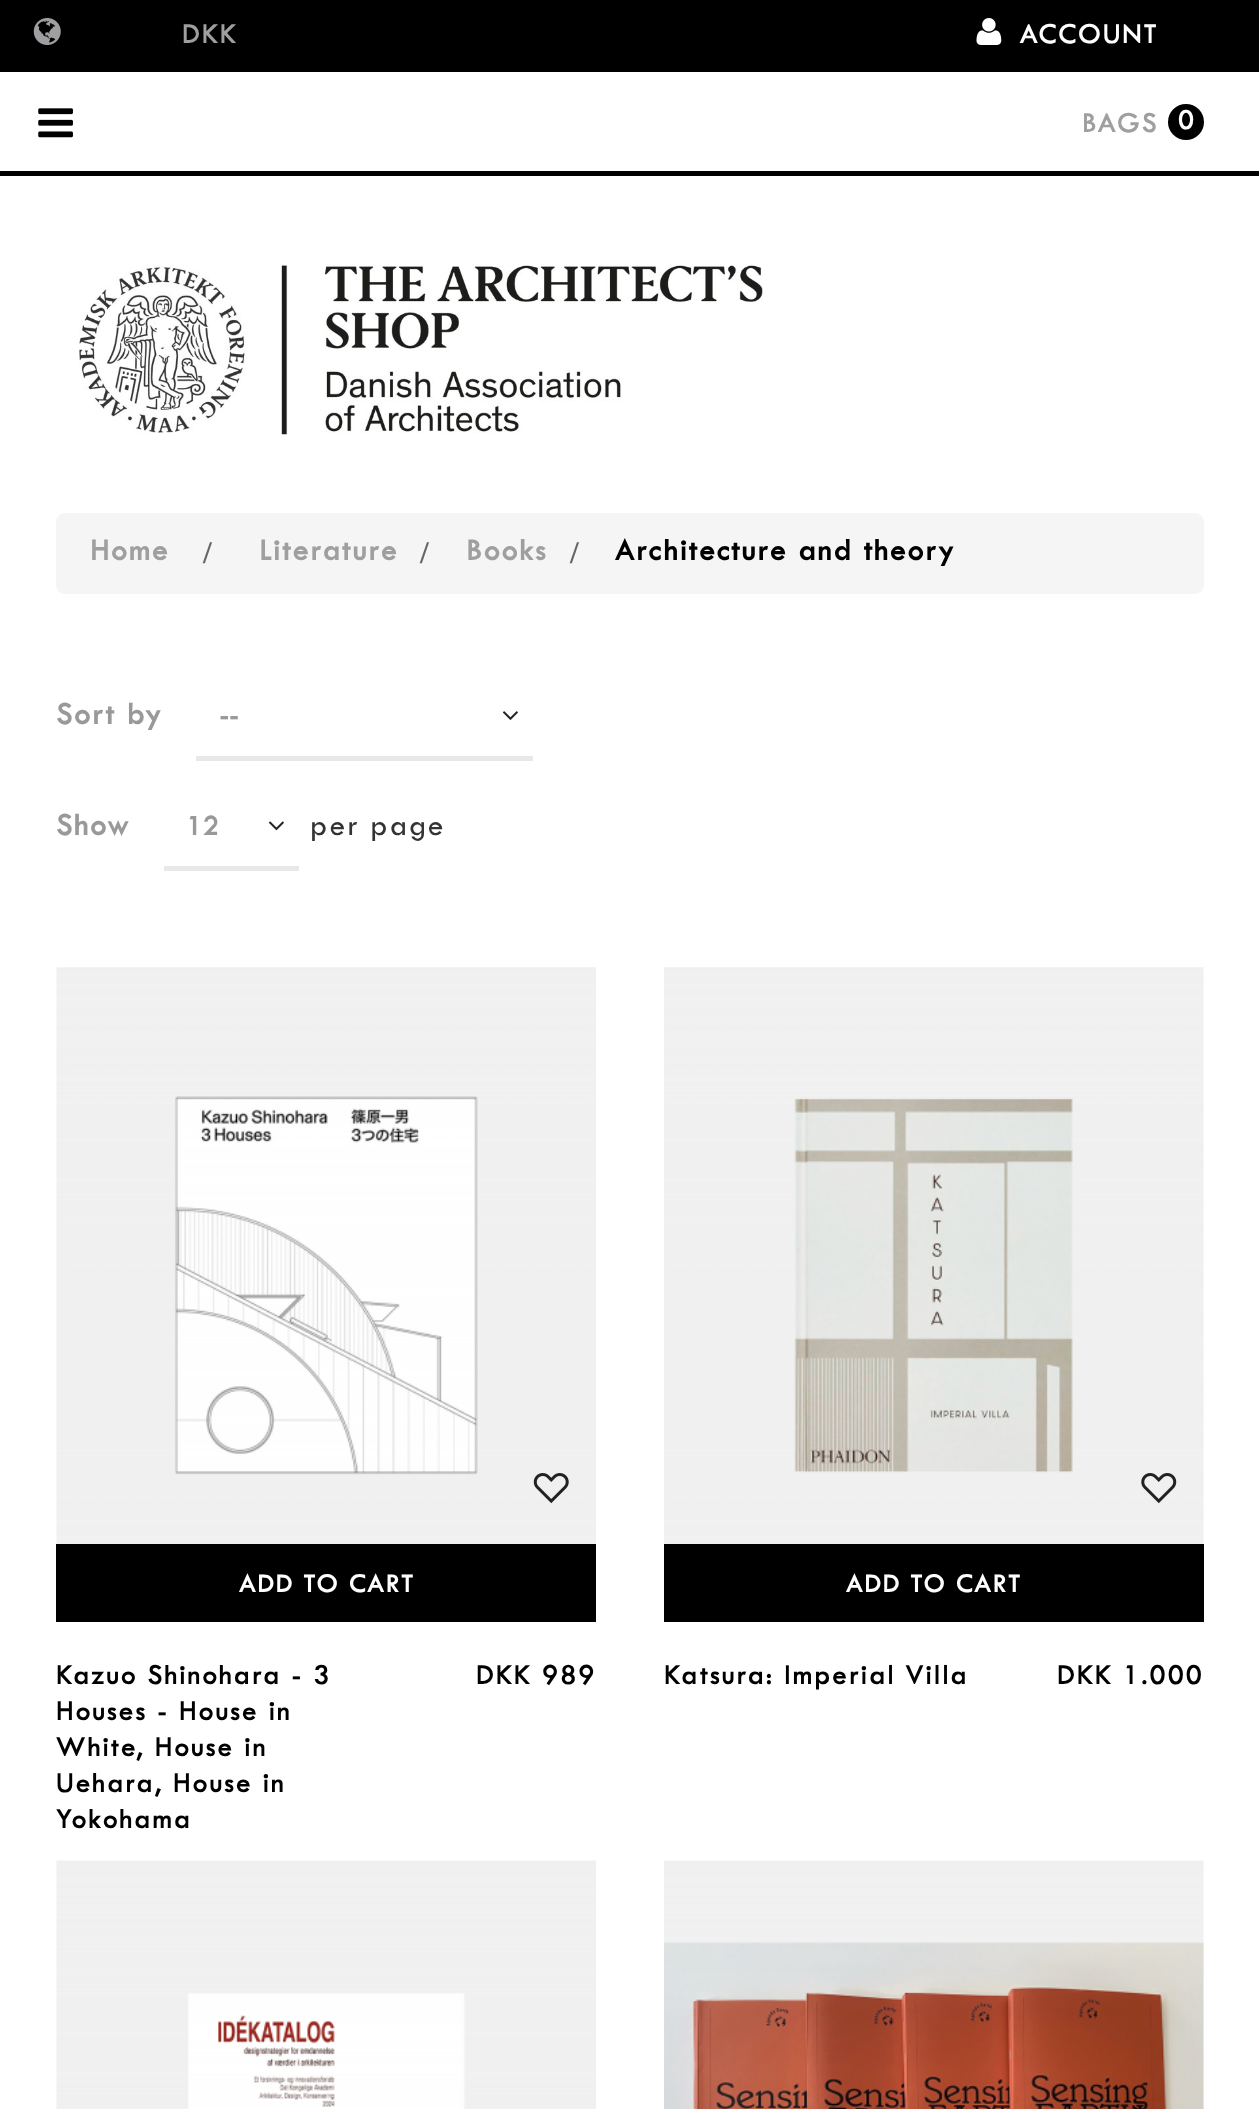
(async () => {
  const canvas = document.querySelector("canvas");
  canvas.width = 1259;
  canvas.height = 2109;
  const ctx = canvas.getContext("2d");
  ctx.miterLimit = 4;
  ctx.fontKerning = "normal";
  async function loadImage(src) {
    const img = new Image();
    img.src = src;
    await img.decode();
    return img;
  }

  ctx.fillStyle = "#ffffff";
  ctx.fillRect(0, 0, 1259, 2109);
  ctx.fillStyle = "#000000";
  ctx.fillRect(0, 0, 1259, 72);
  ctx.drawImage(await loadImage("img/1.png"), 33, 18, 28, 27);
  ctx.drawImage(await loadImage("img/2.png"), 976, 18, 26, 27);
  ctx.beginPath();
  ctx.arc(1186, 122, 18, 0, Math.PI * 2);
  ctx.fill();
  ctx.fillRect(0, 171, 1259, 5);
  ctx.drawImage(await loadImage("img/3.png"), 38, 108, 35, 30);
  ctx.drawImage(await loadImage("img/4.png"), 79, 265, 684, 170);
  ctx.fillStyle = "#f5f5f5";
  ctx.beginPath();
  ctx.roundRect(56, 513, 1148, 81, 9);
  ctx.fill();
  ctx.fillStyle = "#e8e8e8";
  ctx.fillRect(196, 756, 337, 5);
  ctx.drawImage(await loadImage("img/5.png"), 503, 711, 15, 9);
  ctx.fillRect(164, 866, 135, 5);
  ctx.drawImage(await loadImage("img/6.png"), 269, 821, 15, 10);
  ctx.drawImage(await loadImage("img/7.png"), 56, 967, 540, 577);
  ctx.drawImage(await loadImage("img/8.png"), 533, 1473, 36, 31);
  ctx.fillStyle = "#000000";
  ctx.fillRect(56, 1544, 540, 78);
  ctx.drawImage(await loadImage("img/9.png"), 664, 967, 540, 577);
  ctx.drawImage(await loadImage("img/10.png"), 1141, 1473, 36, 31);
  ctx.fillRect(664, 1544, 540, 78);
  ctx.drawImage(await loadImage("img/11.png"), 56, 1860, 540, 249);
  ctx.drawImage(await loadImage("img/12.png"), 664, 1860, 540, 249);
  ctx.letterSpacing = "2px";
  ctx.font = "600 29.25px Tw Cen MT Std";
  ctx.fillStyle = "#9f9fa1";
  ctx.fillText("DKK", 182, 43);
  ctx.fillStyle = "#ffffff";
  ctx.fillText("ACCOUNT", 1020, 43);
  ctx.fillStyle = "#9f9fa1";
  ctx.fillText("BAGS", 1082, 132);
  ctx.fillStyle = "#ffffff";
  ctx.fillText("0", 1178, 129);
  ctx.font = "bold 31.5px Tw Cen MT Std";
  ctx.fillStyle = "#9f9fa1";
  ctx.fillText("Home", 90, 560);
  ctx.font = "bold 31.5px Liberation Serif";
  ctx.fillStyle = "#666666";
  ctx.fillText("/", 203, 563);
  ctx.font = "bold 31.5px Tw Cen MT Std";
  ctx.fillStyle = "#9f9fa1";
  ctx.fillText("Literature", 259, 560);
  ctx.font = "bold 31.5px Liberation Serif";
  ctx.fillStyle = "#666666";
  ctx.fillText("/", 420, 563);
  ctx.font = "bold 31.5px Tw Cen MT Std";
  ctx.fillStyle = "#9f9fa1";
  ctx.fillText("Books", 466, 560);
  ctx.font = "bold 31.5px Liberation Serif";
  ctx.fillStyle = "#666666";
  ctx.fillText("/", 570, 563);
  ctx.font = "bold 31.5px Tw Cen MT Std";
  ctx.fillStyle = "#000000";
  ctx.fillText("Architecture and theory", 615, 560);
  ctx.font = "bold 32px Tw Cen MT Std";
  ctx.fillStyle = "#999999";
  ctx.fillText("Sort by", 56, 724);
  ctx.letterSpacing = "0px";
  ctx.font = "bold 29.25px Tw Cen MT Std";
  ctx.fillText("--", 219, 724);
  ctx.letterSpacing = "2px";
  ctx.font = "bold 32px Tw Cen MT Std";
  ctx.fillText("Show", 56, 835);
  ctx.letterSpacing = "0px";
  ctx.font = "bold 29.25px Tw Cen MT Std";
  ctx.fillText("12", 186, 835);
  ctx.letterSpacing = "2px";
  ctx.font = "500 31.5px Tw Cen MT Std";
  ctx.fillStyle = "#333333";
  ctx.fillText("per page", 310, 835);
  ctx.font = "bold 27px Tw Cen MT Std";
  ctx.fillStyle = "#ffffff";
  ctx.fillText("ADD TO CART", 239, 1592);
  ctx.font = "600 29.25px Tw Cen MT Std";
  ctx.fillStyle = "#000000";
  for (const [text, x, y] of [
    ["Kazuo Shinohara - 3", 56, 1684],
    ["Houses - House in", 56, 1720],
    ["White, House in", 56, 1756],
    ["Uehara, House in", 56, 1792],
    ["Yokohama", 56, 1828],
    ["DKK 989", 476, 1684],
  ]) {
    ctx.fillText(text, x, y);
  }
  ctx.font = "bold 27px Tw Cen MT Std";
  ctx.fillStyle = "#ffffff";
  ctx.fillText("ADD TO CART", 846, 1592);
  ctx.font = "600 29.25px Tw Cen MT Std";
  ctx.fillStyle = "#000000";
  ctx.fillText("Katsura: Imperial Villa", 664, 1684);
  ctx.fillText("DKK 1.000", 1057, 1684);
})();
